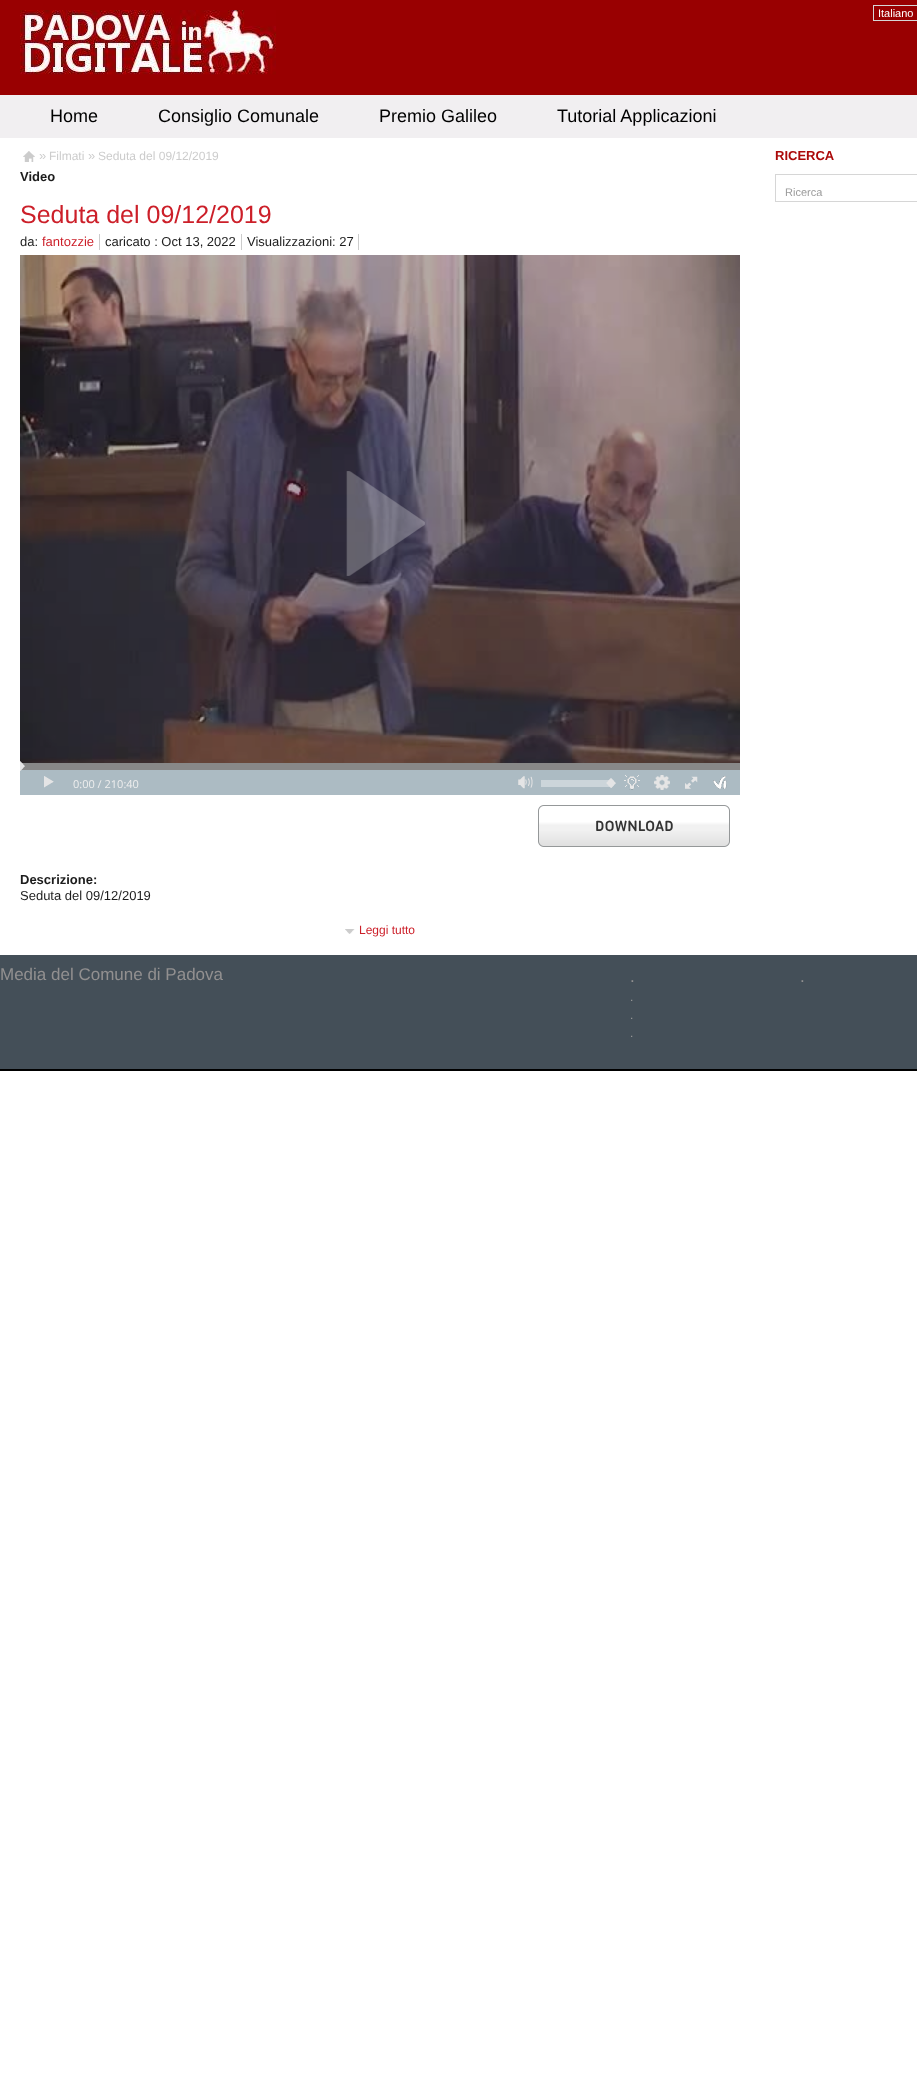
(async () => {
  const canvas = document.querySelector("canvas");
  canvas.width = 917;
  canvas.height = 2091;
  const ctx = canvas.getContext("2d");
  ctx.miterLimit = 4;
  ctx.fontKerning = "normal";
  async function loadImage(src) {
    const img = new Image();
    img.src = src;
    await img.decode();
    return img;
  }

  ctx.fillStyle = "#ffffff";
  ctx.fillRect(0, 0, 917, 2091);
  ctx.drawImage(await loadImage("img/1.png"), 0, 0, 917, 138);
  ctx.drawImage(await loadImage("img/2.png"), 20, 10, 256, 65);
  ctx.strokeStyle = "#d6d6d6";
  ctx.strokeRect(873.5, 5.5, 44, 15);
  ctx.drawImage(await loadImage("img/3.png"), 23, 151, 12, 11);
  for (const [x, y, w, h, color] of [
    [99, 234, 1, 16, "#cccccc"],
    [241, 234, 1, 16, "#cccccc"],
    [358, 234, 1, 16, "#cccccc"],
  ]) {
    ctx.fillStyle = color;
    ctx.fillRect(x, y, w, h);
  }
  ctx.drawImage(await loadImage("img/4.png"), 20, 255, 720, 508);
  ctx.drawImage(await loadImage("img/5.png"), 346, 471, 79, 105);
  ctx.fillStyle = "#888888";
  ctx.fillRect(20, 763, 720, 7);
  ctx.fillStyle = "#acbbc3";
  ctx.fillRect(20, 770, 720, 25);
  ctx.drawImage(await loadImage("img/6.png"), 20, 761, 5, 10);
  ctx.drawImage(await loadImage("img/7.png"), 44, 776, 10, 12);
  ctx.drawImage(await loadImage("img/8.png"), 518, 776, 15, 13);
  ctx.fillStyle = "#ccd5da";
  ctx.fillRect(541, 780, 70, 7);
  ctx.drawImage(await loadImage("img/9.png"), 606, 778, 10, 10);
  ctx.drawImage(await loadImage("img/10.png"), 624, 775, 16, 15);
  ctx.drawImage(await loadImage("img/11.png"), 654, 775, 16, 15);
  ctx.drawImage(await loadImage("img/12.png"), 685, 776, 13, 13);
  ctx.drawImage(await loadImage("img/13.png"), 713, 776, 14, 13);
  ctx.drawImage(await loadImage("img/14.png"), 538, 805, 10, 42);
  ctx.drawImage(await loadImage("img/15.png"), 548, 805, 172, 42);
  ctx.drawImage(await loadImage("img/16.png"), 720, 805, 10, 42);
  ctx.drawImage(await loadImage("img/17.png"), 345, 929, 10, 5);
  ctx.strokeRect(775.5, 174.5, 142, 27);
  ctx.fillStyle = "#000000";
  ctx.fillRect(0, 1069, 917, 2);
  ctx.fillStyle = "#444f58";
  ctx.fillRect(0, 955, 917, 114);
  ctx.font = "11px Liberation Sans";
  ctx.fillStyle = "#ffffff";
  ctx.fillText("Italiano", 878, 17);
  ctx.font = "18px Liberation Sans";
  ctx.fillStyle = "#000000";
  for (const [text, x, y] of [
    ["Home", 50, 122],
    ["Consiglio Comunale", 158, 122],
    ["Premio Galileo", 379, 122],
    ["Tutorial Applicazioni", 557, 122],
  ]) {
    ctx.fillText(text, x, y);
  }
  ctx.font = "13px Liberation Sans";
  ctx.fillStyle = "#cccccc";
  ctx.fillText("»", 39, 160);
  ctx.font = "12px Liberation Sans";
  ctx.fillText("Filmati", 49, 160);
  ctx.font = "13px Liberation Sans";
  ctx.fillText("»", 88, 160);
  ctx.font = "12px Liberation Sans";
  ctx.fillText("Seduta del 09/12/2019", 98, 160);
  ctx.font = "bold 13px Liberation Sans";
  ctx.fillStyle = "#1d1d1d";
  ctx.fillText("Video", 20, 181);
  ctx.font = "25px Liberation Sans";
  ctx.fillStyle = "#cc1f29";
  ctx.fillText("Seduta del 09/12/2019", 20, 223);
  ctx.font = "13px Liberation Sans";
  ctx.fillStyle = "#1d1d1d";
  ctx.fillText("da:", 20, 246);
  ctx.fillStyle = "#cc1f29";
  ctx.fillText("fantozzie", 42, 246);
  ctx.fillStyle = "#1d1d1d";
  ctx.fillText("caricato : Oct 13, 2022", 105, 246);
  ctx.fillText("Visualizzazioni: 27", 247, 246);
  ctx.font = "11px Open Sans";
  ctx.fillStyle = "#eeeeee";
  ctx.fillText("0:00 / 210:40", 73, 788);
  ctx.font = "bold 16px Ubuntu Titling";
  ctx.fillStyle = "#333333";
  ctx.fillText("DOWNLOAD", 595, 831);
  ctx.font = "bold 13px Liberation Sans";
  ctx.fillStyle = "#1d1d1d";
  ctx.fillText("Descrizione:", 20, 884);
  ctx.font = "13px Liberation Sans";
  ctx.fillText("Seduta del 09/12/2019", 20, 900);
  ctx.font = "12px Liberation Sans";
  ctx.fillStyle = "#cc1f29";
  ctx.fillText("Leggi tutto", 359, 934);
  ctx.font = "bold 13px Liberation Sans";
  ctx.fillStyle = "#ab0909";
  ctx.fillText("RICERCA", 775, 160);
  ctx.font = "11px Liberation Sans";
  ctx.fillStyle = "#9b9b9b";
  ctx.fillText("Ricerca", 785, 196);
  ctx.font = "17px Liberation Sans";
  ctx.fillStyle = "#929090";
  ctx.fillText("Media del Comune di Padova", 0, 980);
  ctx.fillText(".", 630, 982);
  ctx.font = "12px Liberation Sans";
  ctx.fillStyle = "#9b9b9b";
  for (const [text, x, y] of [
    [".", 630, 1001],
    [".", 630, 1019],
    [".", 630, 1037],
  ]) {
    ctx.fillText(text, x, y);
  }
  ctx.font = "17px Liberation Sans";
  ctx.fillStyle = "#929090";
  ctx.fillText(".", 800, 982);
})();
